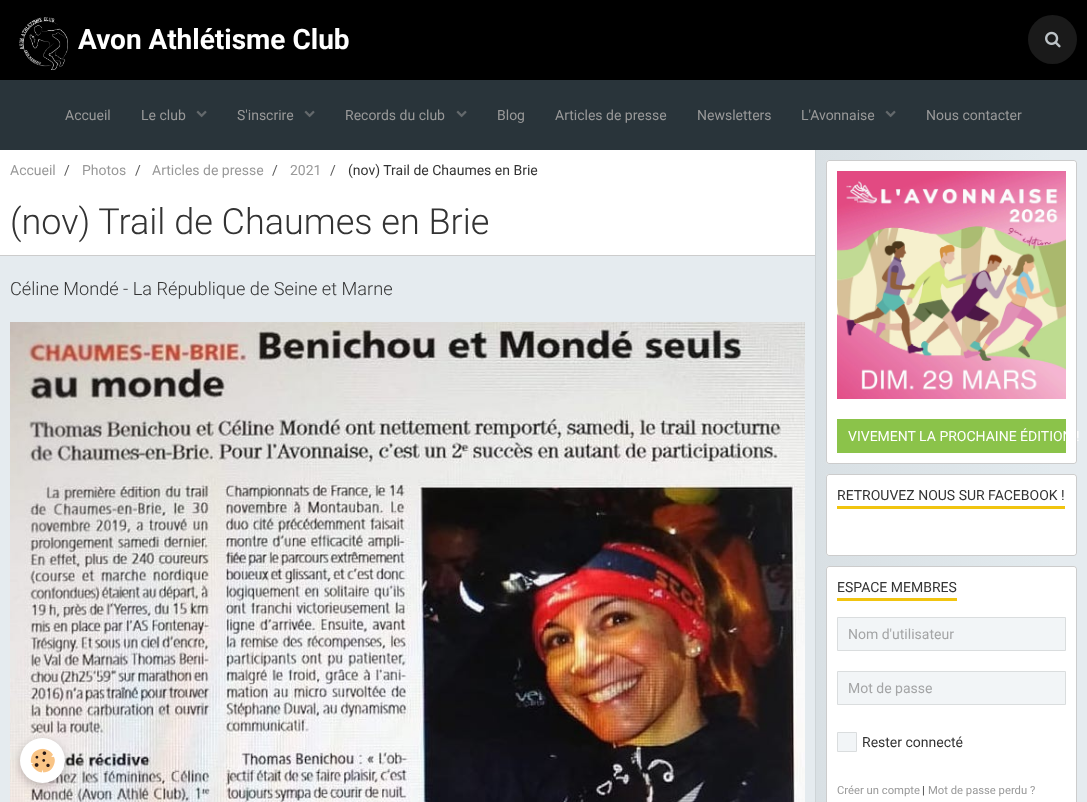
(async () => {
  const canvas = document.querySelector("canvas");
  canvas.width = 1087;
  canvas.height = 802;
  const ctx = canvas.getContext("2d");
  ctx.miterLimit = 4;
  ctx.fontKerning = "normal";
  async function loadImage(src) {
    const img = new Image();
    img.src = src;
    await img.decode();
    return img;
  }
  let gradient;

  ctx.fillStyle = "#e5ebef";
  ctx.fillRect(0, 0, 1087, 802);
  ctx.fillStyle = "#000000";
  ctx.fillRect(0, 0, 1087, 80);
  ctx.drawImage(await loadImage("img/1.png"), 19, 17, 49, 53);
  ctx.fillStyle = "#1a1a1a";
  ctx.beginPath();
  ctx.arc(1052.5, 39.5, 24.5, 0, Math.PI * 2);
  ctx.fill();
  ctx.drawImage(await loadImage("img/2.png"), 1045, 31, 16, 17);
  ctx.fillStyle = "#29343a";
  ctx.fillRect(0, 80, 1087, 70);
  ctx.drawImage(await loadImage("img/3.png"), 196, 110, 11, 8);
  ctx.drawImage(await loadImage("img/3.png"), 304, 110, 11, 8);
  ctx.drawImage(await loadImage("img/3.png"), 456, 110, 11, 8);
  ctx.drawImage(await loadImage("img/3.png"), 885, 110, 11, 8);
  ctx.fillStyle = "#ffffff";
  ctx.fillRect(0, 150, 815, 105);
  ctx.fillStyle = "#cccccc";
  ctx.fillRect(0, 255, 815, 1);
  ctx.drawImage(await loadImage("img/4.png"), 10, 322, 795, 480);
  ctx.fillStyle = "#ced4d7";
  ctx.fillRect(815, 150, 1, 652);
  gradient = ctx.createLinearGradient(816, 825, 1087, 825);
  gradient.addColorStop(0, "#d9e0e4");
  gradient.addColorStop(1, "#e4ecf0");
  ctx.fillStyle = gradient;
  ctx.fillRect(816, 150, 234, 652);
  ctx.fillStyle = "#ffffff";
  ctx.beginPath();
  ctx.roundRect(826, 160, 251, 304, 3);
  ctx.fill();
  ctx.beginPath();
  ctx.roundRect(826.5, 160.5, 250, 303, 2.5);
  ctx.strokeStyle = "rgba(0, 0, 0, 0.2)";
  ctx.stroke();
  ctx.drawImage(await loadImage("img/5.png"), 837, 171, 229, 228);
  ctx.fillStyle = "#8bc34a";
  ctx.fillRect(837, 419, 229, 34);
  ctx.fillStyle = "#ffffff";
  ctx.beginPath();
  ctx.roundRect(826, 474, 251, 82, 3);
  ctx.fill();
  ctx.beginPath();
  ctx.roundRect(826.5, 474.5, 250, 81, 2.5);
  ctx.stroke();
  ctx.fillStyle = "#f1c40f";
  ctx.fillRect(837, 506, 228, 3);
  ctx.fillStyle = "#ffffff";
  ctx.beginPath();
  ctx.roundRect(826, 566, 251, 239, 3);
  ctx.fill();
  ctx.beginPath();
  ctx.roundRect(826.5, 566.5, 250, 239, 2.5);
  ctx.stroke();
  ctx.fillStyle = "#f1c40f";
  ctx.fillRect(837, 598, 120, 3);
  ctx.fillStyle = "#f2f5f7";
  ctx.beginPath();
  ctx.rect(837.5, 617.5, 228, 33);
  ctx.fill();
  ctx.strokeStyle = "#daddde";
  ctx.stroke();
  ctx.beginPath();
  ctx.rect(837.5, 671.5, 228, 33);
  ctx.fill();
  ctx.stroke();
  ctx.beginPath();
  ctx.rect(837.5, 732.5, 19, 19);
  ctx.fill();
  ctx.stroke();
  ctx.fillStyle = "rgba(0, 0, 0, 0.24)";
  ctx.filter = "blur(5px)";
  ctx.beginPath();
  ctx.roundRect(20, 741, 45, 45, 22.5);
  ctx.fill();
  ctx.filter = "none";
  ctx.fillStyle = "#ffffff";
  ctx.beginPath();
  ctx.arc(42.5, 760.5, 22.5, 0, Math.PI * 2);
  ctx.fill();
  ctx.drawImage(await loadImage("img/6.png"), 30, 748, 25, 25);
  ctx.font = "bold 28px Roboto";
  ctx.fillText("Avon Athlétisme Club", 78, 49);
  ctx.font = "14px Roboto";
  ctx.fillStyle = "#999999";
  for (const [text, x, y] of [
    ["Accueil", 65, 120],
    ["Le club", 141, 120],
    ["S'inscrire", 237, 120],
    ["Records du club", 345, 120],
    ["Blog", 497, 120],
    ["Articles de presse", 555, 120],
    ["Newsletters", 697, 120],
    ["L'Avonnaise", 801, 120],
    ["Nous contacter", 926, 120],
    ["Accueil", 10, 175],
  ]) {
    ctx.fillText(text, x, y);
  }
  ctx.fillStyle = "#5c5c5c";
  ctx.fillText("/", 64, 175);
  ctx.fillStyle = "#999999";
  ctx.fillText("Photos", 82, 175);
  ctx.fillStyle = "#5c5c5c";
  ctx.fillText("/", 135, 175);
  ctx.fillStyle = "#999999";
  ctx.fillText("Articles de presse", 152, 175);
  ctx.fillStyle = "#5c5c5c";
  ctx.fillText("/", 272, 175);
  ctx.fillStyle = "#999999";
  ctx.fillText("2021", 290, 175);
  ctx.fillStyle = "#5c5c5c";
  ctx.fillText("/", 330, 175);
  ctx.fillStyle = "#333333";
  ctx.fillText("(nov) Trail de Chaumes en Brie", 348, 175);
  ctx.font = "300 36px Roboto";
  ctx.fillText("(nov) Trail de Chaumes en Brie", 10, 234);
  ctx.font = "300 18.2px Roboto";
  ctx.fillText("Céline Mondé - La République de Seine et Marne", 10, 295);
  ctx.font = "14px Roboto";
  ctx.fillStyle = "#ffffff";
  ctx.fillText("VIVEMENT LA PROCHAINE ÉDITION !", 848, 441);
  ctx.fillStyle = "#333333";
  ctx.fillText("RETROUVEZ NOUS SUR FACEBOOK !", 837, 500);
  ctx.fillText("ESPACE MEMBRES", 837, 592);
  ctx.fillStyle = "#a4a5a6";
  ctx.fillText("Nom d'utilisateur", 848, 639);
  ctx.fillText("Mot de passe", 848, 693);
  ctx.fillStyle = "#333333";
  ctx.fillText("Rester connecté", 862, 747);
  ctx.font = "11.25px Roboto";
  ctx.fillStyle = "#999999";
  ctx.fillText("Créer un compte", 837, 794);
  ctx.fillStyle = "#333333";
  ctx.fillText("|", 922, 794);
  ctx.fillStyle = "#999999";
  ctx.fillText("Mot de passe perdu ?", 928, 794);
})();
